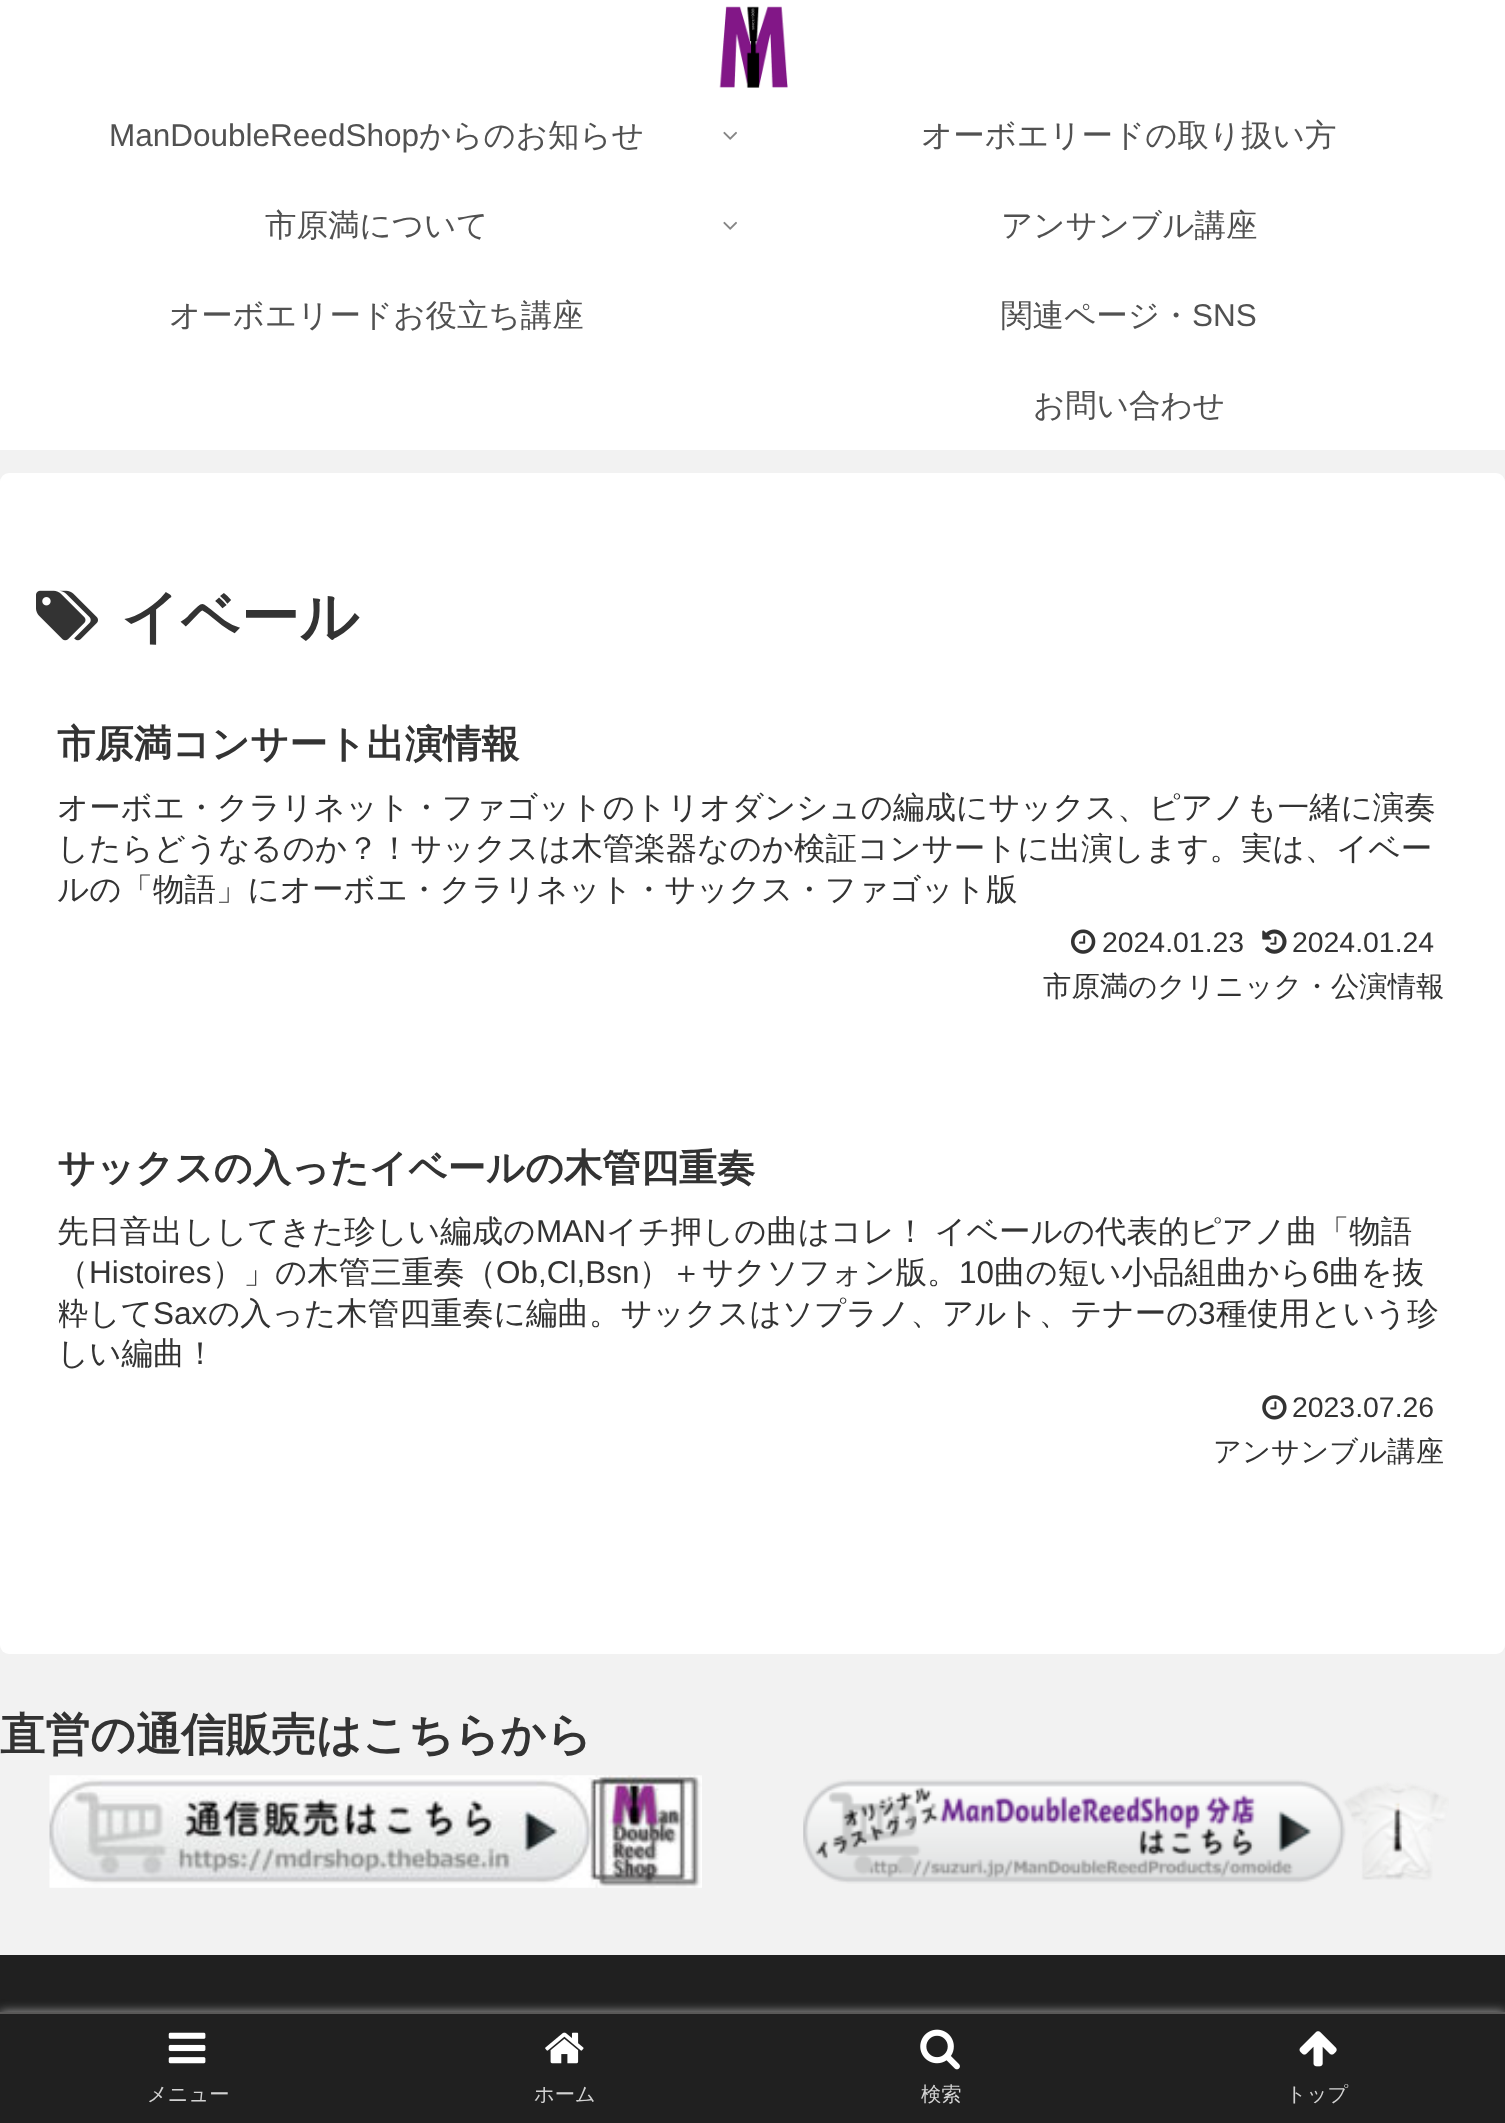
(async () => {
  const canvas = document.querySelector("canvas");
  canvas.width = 1505;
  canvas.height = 2123;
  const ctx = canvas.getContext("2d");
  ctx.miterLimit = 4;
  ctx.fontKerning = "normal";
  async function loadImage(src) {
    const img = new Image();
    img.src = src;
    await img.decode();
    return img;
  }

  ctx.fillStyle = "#f2f2f2";
  ctx.fillRect(0, 0, 1505, 2123);
  ctx.fillStyle = "#ffffff";
  ctx.fillRect(0, 0, 1505, 450);
  ctx.drawImage(await loadImage("img/1.png"), 719, 6, 69, 82);
  ctx.drawImage(await loadImage("img/2.png"), 723, 131, 14, 9);
  ctx.drawImage(await loadImage("img/2.png"), 723, 221, 14, 9);
  ctx.beginPath();
  ctx.roundRect(0, 473, 1505, 1181, 9);
  ctx.fill();
  ctx.drawImage(await loadImage("img/3.png"), 36, 590, 62, 51);
  ctx.drawImage(await loadImage("img/4.png"), 1071, 929, 25, 25);
  ctx.drawImage(await loadImage("img/5.png"), 1262, 929, 25, 25);
  ctx.drawImage(await loadImage("img/6.png"), 1262, 1395, 25, 25);
  ctx.drawImage(await loadImage("img/7.png"), 49, 1775, 653, 113);
  ctx.drawImage(await loadImage("img/8.png"), 803, 1779, 646, 105);
  ctx.fillStyle = "#202020";
  ctx.fillRect(0, 1955, 1505, 57);
  ctx.fillStyle = "#a9a9a9";
  ctx.filter = "blur(5.5px)";
  ctx.beginPath();
  ctx.rect(0, 2012, 1505, 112);
  ctx.fill();
  ctx.filter = "none";
  ctx.fillStyle = "#202020";
  ctx.fillRect(0, 2014, 1505, 109);
  ctx.fillStyle = "#595857";
  ctx.fillRect(0, 2012, 1505, 2);
  ctx.drawImage(await loadImage("img/9.png"), 168, 2032, 38, 32);
  ctx.drawImage(await loadImage("img/10.png"), 545, 2032, 39, 32);
  ctx.drawImage(await loadImage("img/11.png"), 920, 2029, 40, 41);
  ctx.drawImage(await loadImage("img/12.png"), 1299, 2031, 38, 36);
  ctx.font = "31.5px Liberation Sans";
  ctx.fillStyle = "#515151";
  ctx.fillText("ManDoubleReedShop", 109, 146);
  ctx.font = "500 31.5px WenQuanYi Zen Hei";
  for (const [text, x, y] of [
    ["からのお知らせ", 419, 146],
    ["オーボエリードの取り扱い方", 921, 146],
    ["市原満について", 265, 236],
    ["アンサンブル講座", 1001, 236],
    ["オーボエリードお役立ち講座", 169, 326],
    ["関連ページ・", 1001, 326],
  ]) {
    ctx.fillText(text, x, y);
  }
  ctx.font = "31.5px Liberation Sans";
  ctx.fillText("SNS", 1192, 326);
  ctx.font = "500 31.5px WenQuanYi Zen Hei";
  ctx.fillText("お問い合わせ", 1033, 416);
  ctx.font = "bold 58.5px WenQuanYi Zen Hei";
  ctx.fillStyle = "#333333";
  ctx.fillText("イベール", 121, 637);
  ctx.font = "bold 38.25px WenQuanYi Zen Hei";
  ctx.fillText("市原満コンサート出演情報", 57, 757);
  ctx.font = "500 31.5px WenQuanYi Zen Hei";
  for (const [text, x, y] of [
    ["オーボエ・クラリネット・ファゴットのトリオダンシュの編成にサックス、ピアノも一緒に演奏", 57, 818],
    ["したらどうなるのか？！サックスは木管楽器なのか検証コンサートに出演します。実は、イベー", 57, 859],
    ["ルの「物語」にオーボエ・クラリネット・サックス・ファゴット版", 57, 900],
  ]) {
    ctx.fillText(text, x, y);
  }
  ctx.font = "28.4px Liberation Sans";
  ctx.fillText("2024.01.23", 1102, 952);
  ctx.fillText("2024.01.24", 1292, 952);
  ctx.font = "500 28.4px WenQuanYi Zen Hei";
  ctx.fillText("市原満のクリニック・公演情報", 1043, 996);
  ctx.font = "bold 38.25px WenQuanYi Zen Hei";
  ctx.fillText("サックスの入ったイベールの木管四重奏", 57, 1181);
  ctx.font = "500 31.5px WenQuanYi Zen Hei";
  ctx.fillText("先日音出ししてきた珍しい編成の", 57, 1242);
  ctx.font = "31.5px Liberation Sans";
  ctx.fillText("MAN", 536, 1242);
  ctx.wordSpacing = "-1px";
  ctx.font = "500 31.5px WenQuanYi Zen Hei";
  ctx.fillText("イチ押しの曲はコレ！ イベールの代表的ピアノ曲「物語", 606, 1242);
  ctx.wordSpacing = "0px";
  ctx.fillText("（", 57, 1283);
  ctx.font = "31.5px Liberation Sans";
  ctx.fillText("Histoires", 89, 1283);
  ctx.font = "500 31.5px WenQuanYi Zen Hei";
  ctx.fillText("）」の木管三重奏（", 212, 1283);
  ctx.font = "31.5px Liberation Sans";
  ctx.fillText("Ob,Cl,Bsn", 496, 1283);
  ctx.font = "500 31.5px WenQuanYi Zen Hei";
  ctx.fillText("）＋サクソフォン版。", 639, 1283);
  ctx.font = "31.5px Liberation Sans";
  ctx.fillText("10", 959, 1283);
  ctx.font = "500 31.5px WenQuanYi Zen Hei";
  ctx.fillText("曲の短い小品組曲から", 994, 1283);
  ctx.font = "31.5px Liberation Sans";
  ctx.fillText("6", 1312, 1283);
  ctx.font = "500 31.5px WenQuanYi Zen Hei";
  ctx.fillText("曲を抜", 1329, 1283);
  ctx.save();
  ctx.beginPath();
  ctx.rect(59, 1211, 1388, 164);
  ctx.clip();
  ctx.fillText("粋して", 57, 1324);
  ctx.restore();
  ctx.font = "31.5px Liberation Sans";
  ctx.fillText("Sax", 153, 1324);
  ctx.font = "500 31.5px WenQuanYi Zen Hei";
  ctx.fillText("の入った木管四重奏に編曲。サックスはソプラノ、アルト、テナーの", 208, 1324);
  ctx.font = "31.5px Liberation Sans";
  ctx.fillText("3", 1198, 1324);
  ctx.font = "500 31.5px WenQuanYi Zen Hei";
  ctx.fillText("種使用という珍", 1216, 1324);
  ctx.fillText("しい編曲！", 57, 1364);
  ctx.font = "28.4px Liberation Sans";
  ctx.fillText("2023.07.26", 1292, 1417);
  ctx.font = "500 28.4px WenQuanYi Zen Hei";
  ctx.fillText("アンサンブル講座", 1213, 1461);
  ctx.font = "bold 45px WenQuanYi Zen Hei";
  ctx.fillText("直営の通信販売はこちらから", 0, 1750);
  ctx.font = "500 20.25px WenQuanYi Zen Hei";
  ctx.fillStyle = "#d2d2d2";
  for (const [text, x, y] of [
    ["メニュー", 147, 2101],
    ["ホーム", 534, 2101],
    ["検索", 921, 2101],
    ["トップ", 1286, 2101],
  ]) {
    ctx.fillText(text, x, y);
  }
})();
